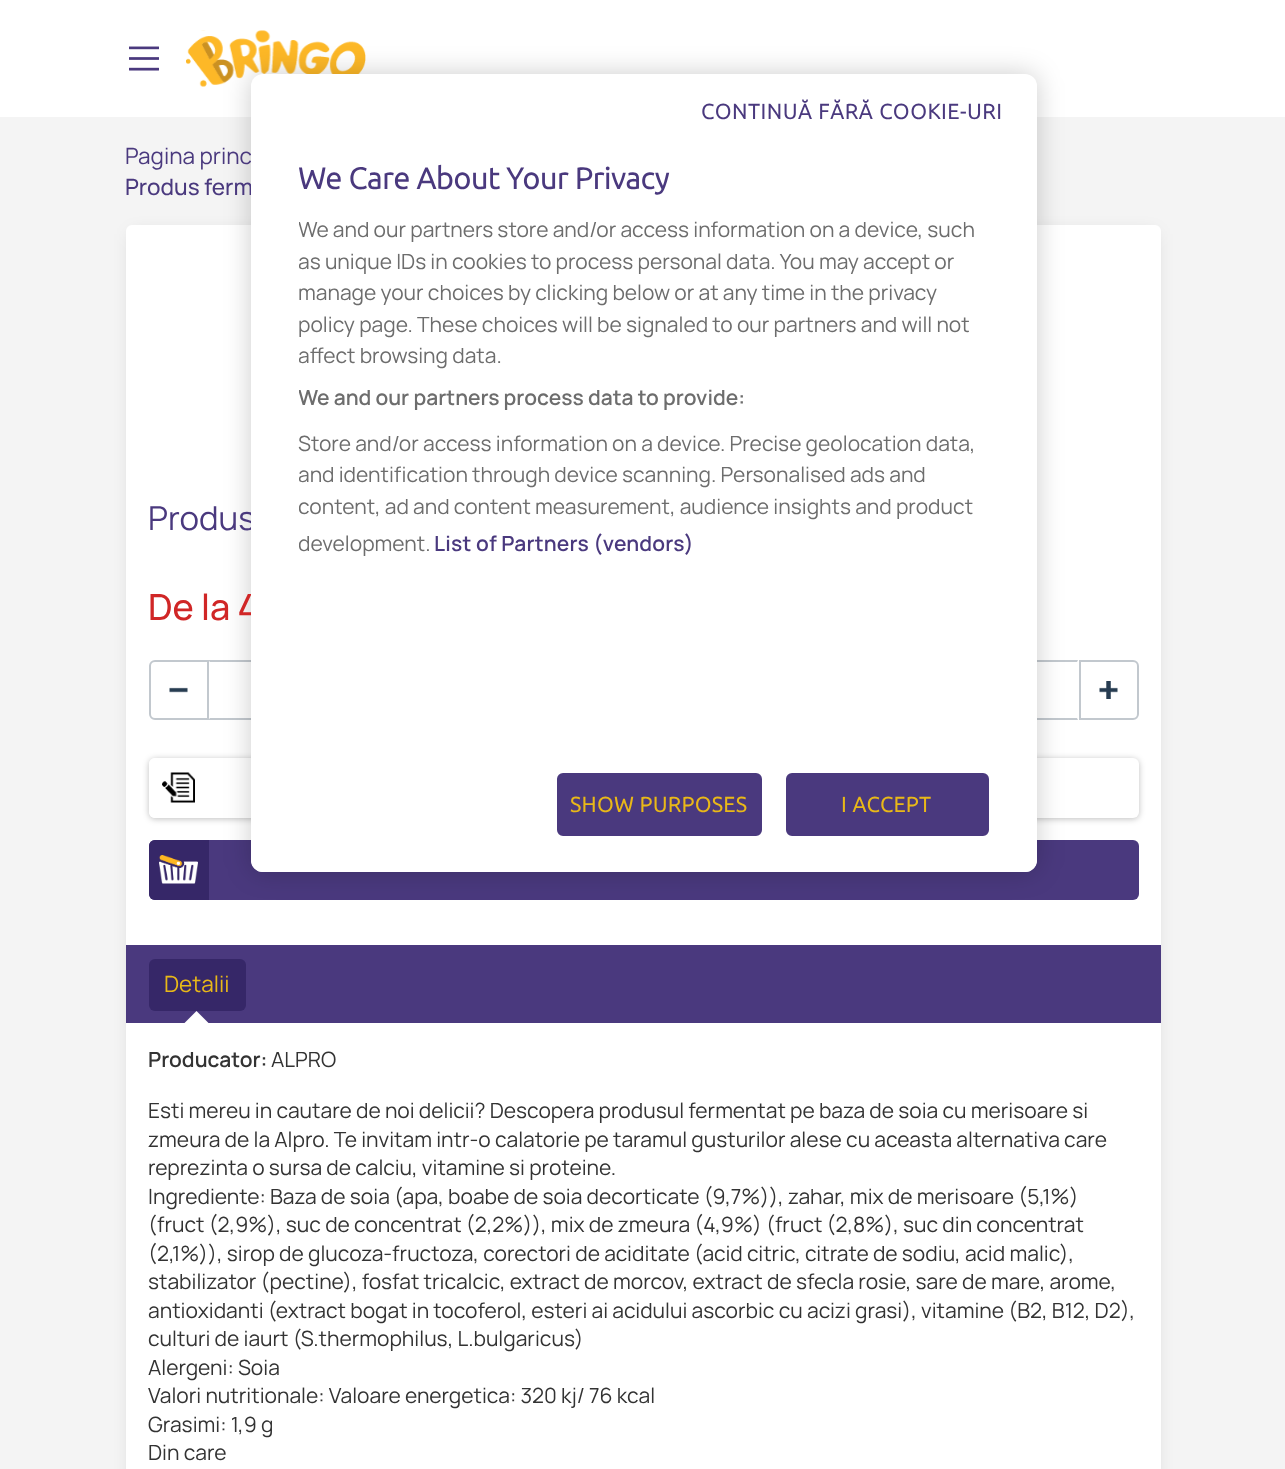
(async () => {
  const canvas = document.querySelector("canvas");
  canvas.width = 1285;
  canvas.height = 1469;
  const ctx = canvas.getContext("2d");
  ctx.miterLimit = 4;
  ctx.fontKerning = "normal";
  async function loadImage(src) {
    const img = new Image();
    img.src = src;
    await img.decode();
    return img;
  }
  let path;

  ctx.fillStyle = "#f4f4f4";
  ctx.fillRect(0, 0, 1285, 1469);
  ctx.fillStyle = "#ffffff";
  ctx.fillRect(0, 0, 1285, 117);
  ctx.drawImage(await loadImage("img/2.png"), 186, 30, 180, 57);
  ctx.fillStyle = "rgba(0, 0, 0, 0.15)";
  ctx.filter = "blur(9px)";
  ctx.beginPath();
  ctx.rect(132, 234, 1023, 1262);
  ctx.fill();
  ctx.filter = "none";
  ctx.fillStyle = "#ffffff";
  ctx.beginPath();
  ctx.roundRect(126, 225, 1035, 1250, 6);
  ctx.fill();
  ctx.fillStyle = "#c2c8ce";
  path = new Path2D("M208 660H1078L1077 662H210Z");
  ctx.fill(path);
  path = new Path2D("M1078 720H208L210 718H1077Z");
  ctx.fill(path);
  ctx.fillStyle = "rgba(0, 0, 0, 0.25)";
  ctx.filter = "blur(3px)";
  ctx.beginPath();
  ctx.roundRect(149, 759, 990, 60, 6);
  ctx.fill();
  ctx.filter = "none";
  ctx.fillStyle = "#ffffff";
  ctx.beginPath();
  ctx.roundRect(149, 758, 990, 60, 6);
  ctx.fill();
  ctx.fillStyle = "#4a397e";
  ctx.beginPath();
  ctx.roundRect(149, 840, 990, 60, 6);
  ctx.fill();
  ctx.fillStyle = "rgba(0, 0, 0, 0.2)";
  ctx.filter = "blur(13.5px)";
  ctx.beginPath();
  ctx.roundRect(251, 74, 786, 798, 12);
  ctx.fill();
  ctx.filter = "none";
  ctx.drawImage(await loadImage("img/1.png"), 129, 46, 30, 25);
  ctx.fillStyle = "#ffffff";
  ctx.beginPath();
  ctx.roundRect(150, 661, 58, 58, [5, 0, 0, 5]);
  ctx.fill();
  ctx.strokeStyle = "#c2c8ce";
  ctx.lineWidth = 2;
  ctx.stroke();
  ctx.drawImage(await loadImage("img/3.png"), 169, 687, 19, 6);
  ctx.beginPath();
  ctx.roundRect(1080, 661, 58, 58, [0, 5, 5, 0]);
  ctx.stroke();
  ctx.drawImage(await loadImage("img/4.png"), 1099, 681, 19, 18);
  ctx.beginPath();
  ctx.roundRect(149, 758, 60, 60, [6, 0, 0, 6]);
  ctx.fill();
  ctx.drawImage(await loadImage("img/5.png"), 162, 772, 33, 31);
  ctx.fillStyle = "#362768";
  ctx.beginPath();
  ctx.roundRect(149, 840, 60, 60, [6, 0, 0, 6]);
  ctx.fill();
  ctx.drawImage(await loadImage("img/6.png"), 159, 855, 39, 29);
  ctx.fillStyle = "#4a397e";
  ctx.fillRect(126, 945, 1035, 78);
  ctx.fillStyle = "#362768";
  ctx.beginPath();
  ctx.roundRect(149, 959, 97, 52, 6);
  ctx.fill();
  ctx.fillStyle = "#ffffff";
  path = new Path2D("M214.5 1029H178.5L196.5 1011Z");
  ctx.fill(path);
  ctx.font = "22.5px Manrope";
  ctx.fillStyle = "#4a397e";
  ctx.fillText("Pagina princ", 125, 164);
  ctx.font = "500 22.5px Manrope";
  ctx.fillText("Produs ferm", 125, 195);
  ctx.font = "33px Manrope";
  ctx.fillText("Produs", 148, 530);
  ctx.font = "500 36px Manrope";
  ctx.fillStyle = "#d02626";
  ctx.fillText("De la 4", 148, 620);
  ctx.fillStyle = "#ffffff";
  ctx.beginPath();
  ctx.roundRect(251, 74, 786, 798, 12);
  ctx.fill();
  ctx.letterSpacing = "1.05px";
  ctx.font = "bold 21px Ubuntu";
  ctx.fillStyle = "#4a397e";
  ctx.fillText("CONTINUĂ FĂRĂ COOKIE-URI", 701, 119);
  ctx.fillStyle = "#ffffff";
  ctx.beginPath();
  ctx.roundRect(251, 749, 786, 123, [0, 0, 12, 12]);
  ctx.fill();
  ctx.fillStyle = "#4a397e";
  ctx.beginPath();
  ctx.roundRect(558, 774, 203, 61, 5);
  ctx.fill();
  ctx.strokeStyle = "#4a397e";
  ctx.stroke();
  ctx.letterSpacing = "0.75px";
  ctx.fillStyle = "#e9b818";
  ctx.fillText("SHOW PURPOSES", 570, 812);
  ctx.fillStyle = "#4a397e";
  ctx.beginPath();
  ctx.roundRect(787, 774, 201, 61, 5);
  ctx.fill();
  ctx.stroke();
  ctx.fillStyle = "#e9b818";
  ctx.fillText("I ACCEPT", 841, 812);
  ctx.letterSpacing = "0.2px";
  ctx.font = "600 21px Manrope";
  ctx.fillStyle = "#4a397e";
  ctx.fillText("List of Partners (vendors)", 434, 551);
  ctx.save();
  ctx.beginPath();
  ctx.rect(299, 158, 690, 603);
  ctx.clip();
  ctx.letterSpacing = "0px";
  ctx.font = "21px Manrope";
  ctx.fillStyle = "#6d6d6d";
  for (const [text, x, y] of [
    ["development.", 298, 551],
    ["content, ad and content measurement, audience insights and product", 298, 514],
    ["and identification through device scanning. Personalised ads and", 298, 482],
  ]) {
    ctx.fillText(text, x, y);
  }
  ctx.restore();
  ctx.letterSpacing = "0px";
  ctx.font = "21px Manrope";
  ctx.fillStyle = "#6d6d6d";
  ctx.fillText("Store and/or access information on a device. Precise geolocation data,", 298, 451);
  ctx.save();
  ctx.beginPath();
  ctx.rect(299, 158, 690, 603);
  ctx.clip();
  ctx.font = "600 21px Manrope";
  ctx.fillText("We and our partners process data to provide:", 298, 405);
  ctx.font = "21px Manrope";
  ctx.fillText("affect browsing data.", 298, 363);
  ctx.restore();
  ctx.fillText("policy page. These choices will be signaled to our partners and will not", 298, 332);
  ctx.fillText("manage your choices by clicking below or at any time in the privacy", 298, 300);
  ctx.save();
  ctx.beginPath();
  ctx.rect(299, 158, 690, 603);
  ctx.clip();
  ctx.fillText("as unique IDs in cookies to process personal data. You may accept or", 298, 269);
  ctx.fillText("We and our partners store and/or access information on a device, such", 298, 237);
  ctx.restore();
  ctx.font = "bold 30px Ubuntu";
  ctx.fillStyle = "#4a397e";
  ctx.fillText("We Care About Your Privacy", 298, 189);
  ctx.font = "22.5px Manrope";
  ctx.fillStyle = "#e9b818";
  ctx.fillText("Detalii", 164, 992);
  ctx.font = "600 21px Manrope";
  ctx.fillStyle = "#333333";
  ctx.fillText("Producator:", 148, 1067);
  ctx.font = "21px Manrope";
  for (const [text, x, y] of [
    ["ALPRO", 271, 1067],
    ["Esti mereu in cautare de noi delicii? Descopera produsul fermentat pe baza de soia cu merisoare si", 148, 1118],
    ["zmeura de la Alpro. Te invitam intr-o calatorie pe taramul gusturilor alese cu aceasta alternativa care", 148, 1147],
    ["reprezinta o sursa de calciu, vitamine si proteine.", 148, 1175],
    ["Ingrediente: Baza de soia (apa, boabe de soia decorticate (9,7%)), zahar, mix de merisoare (5,1%)", 148, 1204],
    ["(fruct (2,9%), suc de concentrat (2,2%)), mix de zmeura (4,9%) (fruct (2,8%), suc din concentrat", 148, 1232],
    ["(2,1%)), sirop de glucoza-fructoza, corectori de aciditate (acid citric, citrate de sodiu, acid malic),", 148, 1261],
    ["stabilizator (pectine), fosfat tricalcic, extract de morcov, extract de sfecla rosie, sare de mare, arome,", 148, 1289],
    ["antioxidanti (extract bogat in tocoferol, esteri ai acidului ascorbic cu acizi grasi), vitamine (B2, B12, D2),", 148, 1318],
    ["culturi de iaurt (S.thermophilus, L.bulgaricus)", 148, 1346],
    ["Alergeni: Soia", 148, 1375],
    ["Valori nutritionale: Valoare energetica: 320 kj/ 76 kcal", 148, 1403],
    ["Grasimi: 1,9 g", 148, 1432],
    ["Din care", 148, 1460],
  ]) {
    ctx.fillText(text, x, y);
  }
})();
